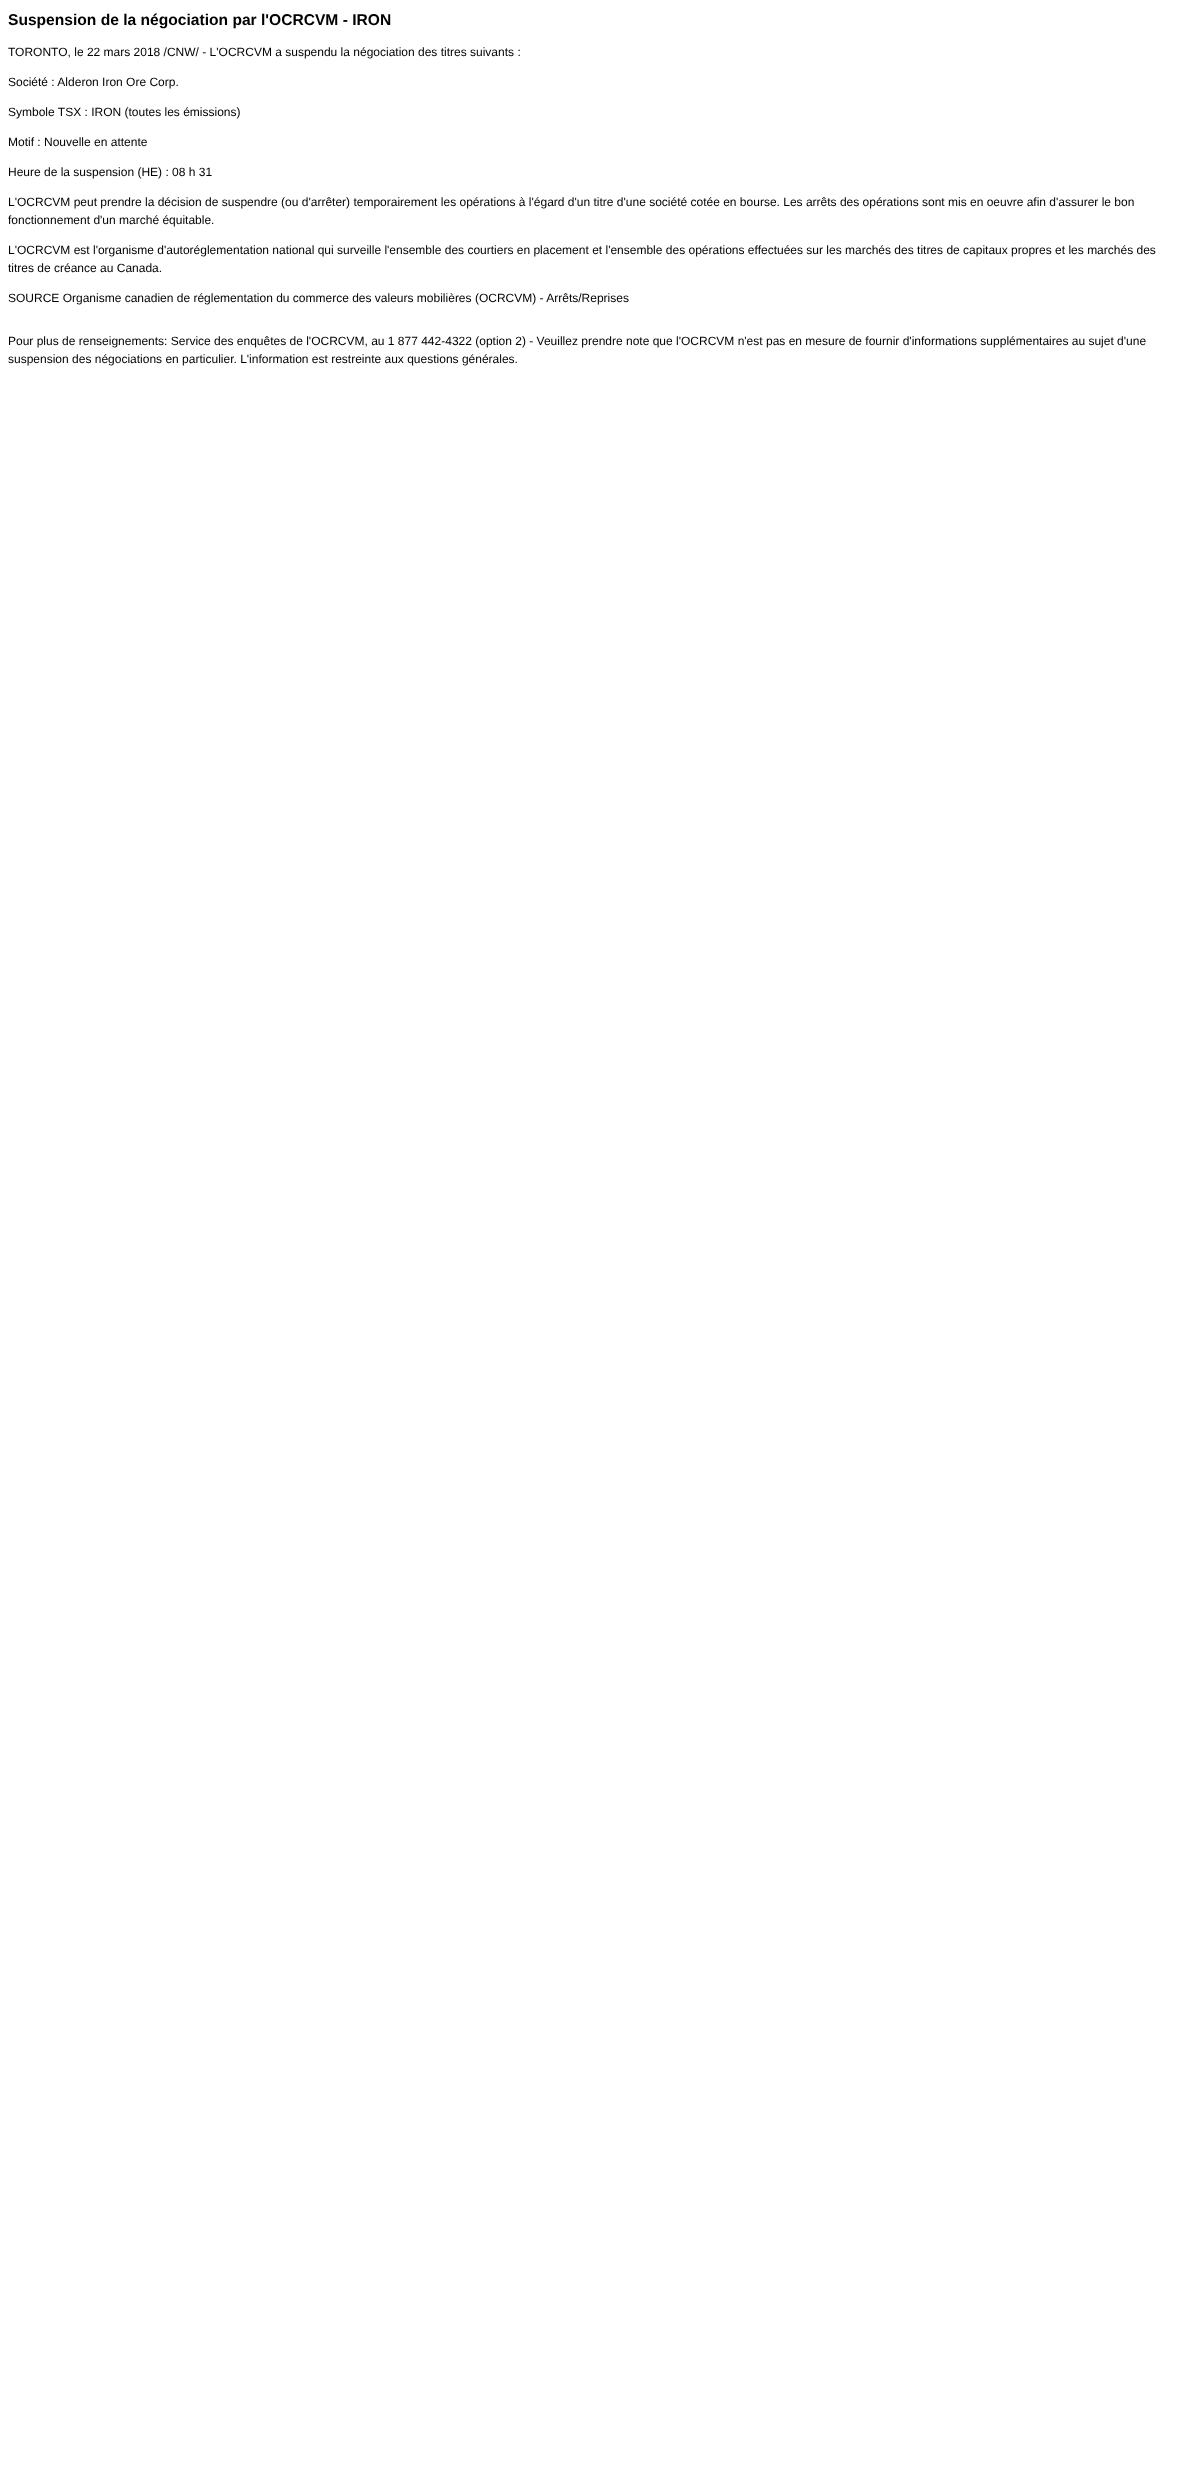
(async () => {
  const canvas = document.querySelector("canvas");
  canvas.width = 1185;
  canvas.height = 2469;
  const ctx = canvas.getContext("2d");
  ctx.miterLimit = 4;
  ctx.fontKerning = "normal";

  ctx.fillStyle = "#ffffff";
  ctx.fillRect(0, 0, 1185, 2469);
  ctx.font = "bold 15.6px Liberation Sans";
  ctx.fillStyle = "#000000";
  ctx.fillText("Suspension de la négociation par l'OCRCVM - IRON", 8, 25);
  ctx.font = "12px Liberation Sans";
  for (const [text, x, y] of [
    ["TORONTO, le 22 mars 2018 /CNW/ - L'OCRCVM a suspendu la négociation des titres suivants :", 8, 56],
    ["Société : Alderon Iron Ore Corp.", 8, 86],
    ["Symbole TSX : IRON (toutes les émissions)", 8, 116],
    ["Motif : Nouvelle en attente", 8, 146],
    ["Heure de la suspension (HE) : 08 h 31", 8, 176],
    ["L'OCRCVM peut prendre la décision de suspendre (ou d'arrêter) temporairement les opérations à l'égard d'un titre d'une société cotée en bourse. Les arrêts des opérations sont mis en oeuvre afin d'assurer le bon", 8, 206],
    ["fonctionnement d'un marché équitable.", 8, 224],
    ["L'OCRCVM est l'organisme d'autoréglementation national qui surveille l'ensemble des courtiers en placement et l'ensemble des opérations effectuées sur les marchés des titres de capitaux propres et les marchés des", 8, 254],
    ["titres de créance au Canada.", 8, 272],
    ["SOURCE Organisme canadien de réglementation du commerce des valeurs mobilières (OCRCVM) - Arrêts/Reprises", 8, 302],
    ["Pour plus de renseignements: Service des enquêtes de l'OCRCVM, au 1 877 442-4322 (option 2) - Veuillez prendre note que l'OCRCVM n'est pas en mesure de fournir d'informations supplémentaires au sujet d'une", 8, 345],
    ["suspension des négociations en particulier. L'information est restreinte aux questions générales.", 8, 363],
  ]) {
    ctx.fillText(text, x, y);
  }
})();
